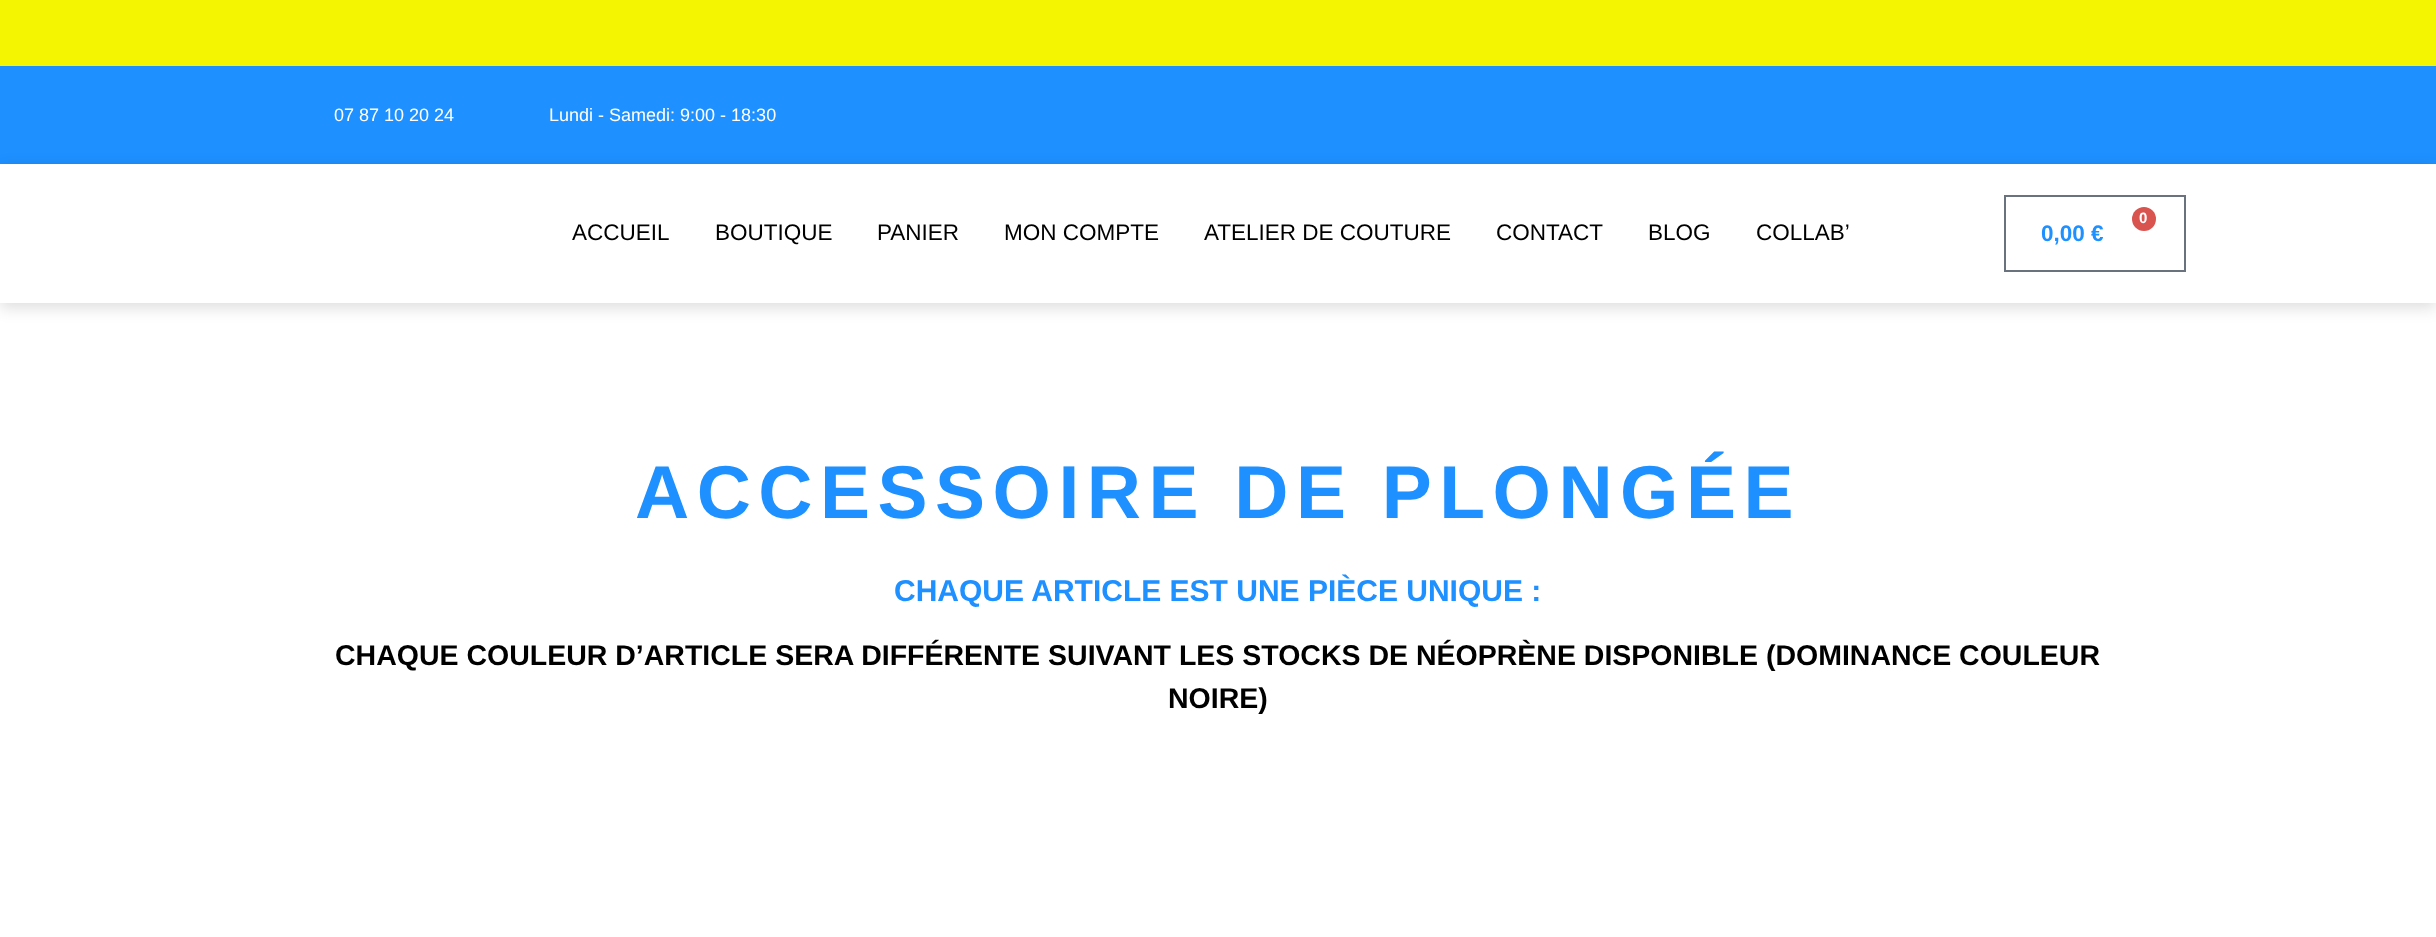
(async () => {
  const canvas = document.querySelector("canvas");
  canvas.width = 2436;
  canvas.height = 937;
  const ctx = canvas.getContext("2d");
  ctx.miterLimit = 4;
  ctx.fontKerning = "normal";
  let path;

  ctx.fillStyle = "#ffffff";
  ctx.fillRect(0, 0, 2436, 937);
  ctx.fillStyle = "#f3f600";
  ctx.fillRect(0, 0, 2436, 66);
  ctx.fillStyle = "#1e90ff";
  ctx.fillRect(0, 66, 2436, 98);
  ctx.save();
  path = new Path2D("M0 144H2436V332H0ZM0 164H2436V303H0Z");
  ctx.clip(path, "evenodd");
  ctx.fillStyle = "rgba(0, 0, 0, 0.13)";
  ctx.filter = "blur(7.5px)";
  ctx.beginPath();
  ctx.rect(0, 168, 2436, 140);
  ctx.fill();
  ctx.filter = "none";
  ctx.restore();
  ctx.strokeStyle = "#69727d";
  ctx.lineWidth = 2;
  ctx.strokeRect(2005, 196, 180, 75);
  ctx.fillStyle = "#d9534f";
  ctx.beginPath();
  ctx.arc(2144, 219, 12, 0, Math.PI * 2);
  ctx.fill();
  ctx.font = "18px Liberation Sans";
  ctx.fillStyle = "#ffffff";
  ctx.fillText("07 87 10 20 24", 334, 121);
  ctx.fillText("Lundi - Samedi: 9:00 - 18:30", 549, 121);
  ctx.font = "22.5px Liberation Sans";
  ctx.fillStyle = "#000000";
  for (const [text, x, y] of [
    ["ACCUEIL", 572, 240],
    ["BOUTIQUE", 715, 240],
    ["PANIER", 877, 240],
    ["MON COMPTE", 1004, 240],
    ["ATELIER DE COUTURE", 1204, 240],
    ["CONTACT", 1496, 240],
    ["BLOG", 1648, 240],
    ["COLLAB’", 1756, 240],
  ]) {
    ctx.fillText(text, x, y);
  }
  ctx.font = "bold 15px Liberation Sans";
  ctx.fillStyle = "#ffffff";
  ctx.fillText("0", 2139, 223);
  ctx.font = "bold 22.5px Liberation Sans";
  ctx.fillStyle = "#1e90ff";
  ctx.fillText("0,00 €", 2041, 241);
  ctx.letterSpacing = "7.5px";
  ctx.font = "bold 75px Liberation Sans";
  ctx.fillText("ACCESSOIRE DE PLONGÉE", 635, 518);
  ctx.letterSpacing = "0px";
  ctx.font = "bold 30px Liberation Sans";
  ctx.fillText("CHAQUE ARTICLE EST UNE PIÈCE UNIQUE :", 894, 601);
  ctx.font = "bold 28.5px Liberation Sans";
  ctx.fillStyle = "#000000";
  ctx.fillText("CHAQUE COULEUR D’ARTICLE SERA DIFFÉRENTE SUIVANT LES STOCKS DE NÉOPRÈNE DISPONIBLE (DOMINANCE COULEUR", 335, 665);
  ctx.fillText("NOIRE)", 1168, 708);
})();
